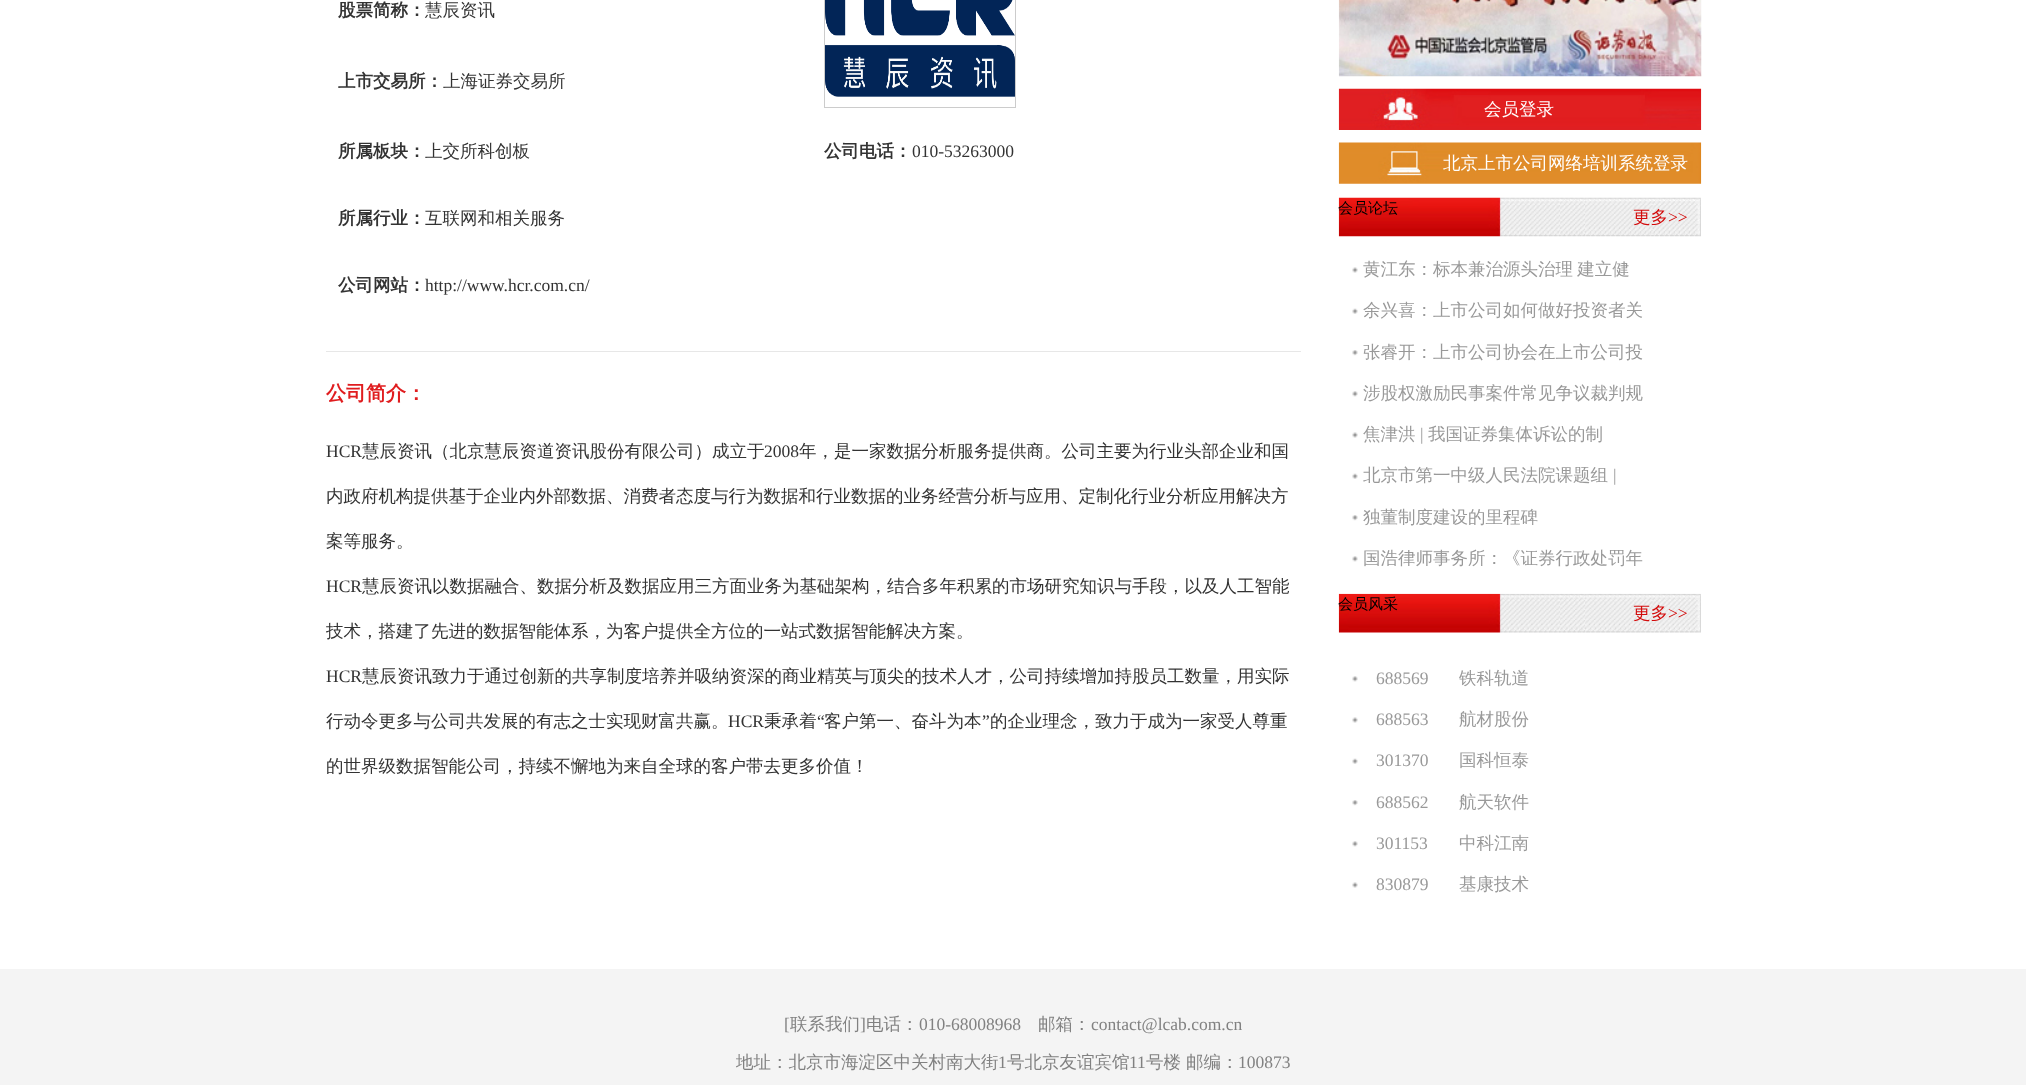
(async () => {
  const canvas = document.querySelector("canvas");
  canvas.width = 2026;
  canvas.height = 1085;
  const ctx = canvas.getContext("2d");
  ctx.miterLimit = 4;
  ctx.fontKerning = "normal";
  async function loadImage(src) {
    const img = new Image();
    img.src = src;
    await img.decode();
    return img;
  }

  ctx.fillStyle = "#ffffff";
  ctx.fillRect(0, 0, 2026, 1085);
  ctx.strokeStyle = "#cccccc";
  ctx.strokeRect(824.5, -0.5, 191, 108);
  ctx.drawImage(await loadImage("img/1.png"), 825, 0, 190, 97);
  ctx.fillStyle = "#e7e7e7";
  ctx.fillRect(326, 351, 975, 1);
  ctx.drawImage(await loadImage("img/2.png"), 1338, 0, 364, 77);
  ctx.drawImage(await loadImage("img/3.png"), 1338, 88, 364, 42);
  ctx.drawImage(await loadImage("img/4.png"), 1338, 142, 364, 42);
  ctx.drawImage(await loadImage("img/5.png"), 1338, 197, 363, 40);
  ctx.drawImage(await loadImage("img/6.png"), 1352, 267, 6, 6);
  ctx.drawImage(await loadImage("img/7.png"), 1352, 308, 6, 6);
  ctx.drawImage(await loadImage("img/8.png"), 1352, 350, 6, 6);
  ctx.drawImage(await loadImage("img/9.png"), 1352, 391, 6, 6);
  ctx.drawImage(await loadImage("img/6.png"), 1352, 432, 6, 6);
  ctx.drawImage(await loadImage("img/7.png"), 1352, 473, 6, 6);
  ctx.drawImage(await loadImage("img/8.png"), 1352, 515, 6, 6);
  ctx.drawImage(await loadImage("img/9.png"), 1352, 556, 6, 6);
  ctx.drawImage(await loadImage("img/10.png"), 1338, 593, 363, 40);
  ctx.drawImage(await loadImage("img/9.png"), 1352, 676, 6, 6);
  ctx.drawImage(await loadImage("img/6.png"), 1352, 717, 6, 6);
  ctx.drawImage(await loadImage("img/7.png"), 1352, 758, 6, 6);
  ctx.drawImage(await loadImage("img/8.png"), 1352, 800, 6, 6);
  ctx.drawImage(await loadImage("img/9.png"), 1352, 841, 6, 6);
  ctx.drawImage(await loadImage("img/6.png"), 1352, 882, 6, 6);
  ctx.fillStyle = "#f4f4f4";
  ctx.fillRect(0, 969, 2026, 116);
  ctx.font = "bold 17.5px WenQuanYi Zen Hei";
  ctx.fillStyle = "#333333";
  ctx.fillText("股票简称：", 338, 16);
  ctx.font = "500 17.5px WenQuanYi Zen Hei";
  ctx.fillText("慧辰资讯", 425, 16);
  ctx.font = "bold 17.5px WenQuanYi Zen Hei";
  ctx.fillText("上市交易所：", 338, 87);
  ctx.font = "500 17.5px WenQuanYi Zen Hei";
  ctx.fillText("上海证券交易所", 443, 87);
  ctx.font = "bold 17.5px WenQuanYi Zen Hei";
  ctx.fillText("所属板块：", 338, 157);
  ctx.font = "500 17.5px WenQuanYi Zen Hei";
  ctx.fillText("上交所科创板", 425, 157);
  ctx.font = "bold 17.5px WenQuanYi Zen Hei";
  ctx.fillText("公司电话：", 824, 157);
  ctx.font = "17.5px Liberation Serif";
  ctx.fillText("010-53263000", 912, 157);
  ctx.font = "bold 17.5px WenQuanYi Zen Hei";
  ctx.fillText("所属行业：", 338, 224);
  ctx.font = "500 17.5px WenQuanYi Zen Hei";
  ctx.fillText("互联网和相关服务", 425, 224);
  ctx.font = "bold 17.5px WenQuanYi Zen Hei";
  ctx.fillText("公司网站：", 338, 291);
  ctx.font = "17.5px Liberation Serif";
  ctx.fillText("http://www.hcr.com.cn/", 425, 291);
  ctx.font = "bold 20px WenQuanYi Zen Hei";
  ctx.fillStyle = "#e01d1f";
  ctx.fillText("公司简介：", 326, 400);
  ctx.font = "17.5px Liberation Serif";
  ctx.fillStyle = "#333333";
  ctx.fillText("HCR", 326, 457);
  ctx.font = "500 17.5px WenQuanYi Zen Hei";
  ctx.fillText("慧辰资讯（北京慧辰资道资讯股份有限公司）成立于", 362, 457);
  ctx.font = "17.5px Liberation Serif";
  ctx.fillText("2008", 764, 457);
  ctx.font = "500 17.5px WenQuanYi Zen Hei";
  for (const [text, x, y] of [
    ["年，是一家数据分析服务提供商。公司主要为行业头部企业和国", 799, 457],
    ["内政府机构提供基于企业内外部数据、消费者态度与行为数据和行业数据的业务经营分析与应用、定制化行业分析应用解决方", 326, 502],
    ["案等服务。", 326, 547],
  ]) {
    ctx.fillText(text, x, y);
  }
  ctx.font = "17.5px Liberation Serif";
  ctx.fillText("HCR", 326, 592);
  ctx.font = "500 17.5px WenQuanYi Zen Hei";
  ctx.fillText("慧辰资讯以数据融合、数据分析及数据应用三方面业务为基础架构，结合多年积累的市场研究知识与手段，以及人工智能", 362, 592);
  ctx.fillText("技术，搭建了先进的数据智能体系，为客户提供全方位的一站式数据智能解决方案。", 326, 637);
  ctx.font = "17.5px Liberation Serif";
  ctx.fillText("HCR", 326, 682);
  ctx.font = "500 17.5px WenQuanYi Zen Hei";
  ctx.fillText("慧辰资讯致力于通过创新的共享制度培养并吸纳资深的商业精英与顶尖的技术人才，公司持续增加持股员工数量，用实际", 362, 682);
  ctx.fillText("行动令更多与公司共发展的有志之士实现财富共赢。", 326, 727);
  ctx.font = "17.5px Liberation Serif";
  ctx.fillText("HCR", 728, 727);
  ctx.font = "500 17.5px WenQuanYi Zen Hei";
  ctx.fillText("秉承着", 764, 727);
  ctx.font = "17.5px Liberation Serif";
  ctx.fillText("“", 817, 727);
  ctx.font = "500 17.5px WenQuanYi Zen Hei";
  ctx.fillText("客户第一、奋斗为本", 824, 727);
  ctx.font = "17.5px Liberation Serif";
  ctx.fillText("”", 982, 727);
  ctx.font = "500 17.5px WenQuanYi Zen Hei";
  ctx.fillText("的企业理念，致力于成为一家受人尊重", 990, 727);
  ctx.fillText("的世界级数据智能公司，持续不懈地为来自全球的客户带去更多价值！", 326, 772);
  ctx.fillStyle = "#ffffff";
  ctx.fillText("会员登录", 1484, 115);
  ctx.fillText("北京上市公司网络培训系统登录", 1443, 169);
  ctx.font = "500 15px WenQuanYi Zen Hei";
  ctx.fillStyle = "#000000";
  ctx.fillText("会员论坛", 1338, 213);
  ctx.font = "500 17.5px WenQuanYi Zen Hei";
  ctx.fillStyle = "#d30b0b";
  ctx.fillText("更多", 1633, 223);
  ctx.font = "17.5px Liberation Serif";
  ctx.fillText(">>", 1668, 223);
  ctx.wordSpacing = "-1px";
  ctx.font = "500 17.5px WenQuanYi Zen Hei";
  ctx.fillStyle = "#999999";
  ctx.fillText("黄江东：标本兼治源头治理 建立健", 1363, 275);
  ctx.wordSpacing = "0px";
  for (const [text, x, y] of [
    ["余兴喜：上市公司如何做好投资者关", 1363, 316],
    ["张睿开：上市公司协会在上市公司投", 1363, 358],
    ["涉股权激励民事案件常见争议裁判规", 1363, 399],
    ["焦津洪", 1363, 440],
  ]) {
    ctx.fillText(text, x, y);
  }
  ctx.font = "17.5px Liberation Serif";
  ctx.fillText("|", 1420, 440);
  ctx.font = "500 17.5px WenQuanYi Zen Hei";
  ctx.fillText("我国证券集体诉讼的制", 1428, 440);
  ctx.fillText("北京市第一中级人民法院课题组", 1363, 481);
  ctx.font = "17.5px Liberation Serif";
  ctx.fillText("|", 1613, 481);
  ctx.font = "500 17.5px WenQuanYi Zen Hei";
  ctx.fillText("独董制度建设的里程碑", 1363, 523);
  ctx.fillText("国浩律师事务所：《证券行政处罚年", 1363, 564);
  ctx.font = "500 15px WenQuanYi Zen Hei";
  ctx.fillStyle = "#000000";
  ctx.fillText("会员风采", 1338, 609);
  ctx.font = "500 17.5px WenQuanYi Zen Hei";
  ctx.fillStyle = "#d30b0b";
  ctx.fillText("更多", 1633, 619);
  ctx.font = "17.5px Liberation Serif";
  ctx.fillText(">>", 1668, 619);
  ctx.fillStyle = "#999999";
  ctx.fillText("688569", 1376, 684);
  ctx.font = "500 17.5px WenQuanYi Zen Hei";
  ctx.fillText("铁科轨道", 1459, 684);
  ctx.font = "17.5px Liberation Serif";
  ctx.fillText("688563", 1376, 725);
  ctx.font = "500 17.5px WenQuanYi Zen Hei";
  ctx.fillText("航材股份", 1459, 725);
  ctx.font = "17.5px Liberation Serif";
  ctx.fillText("301370", 1376, 766);
  ctx.font = "500 17.5px WenQuanYi Zen Hei";
  ctx.fillText("国科恒泰", 1459, 766);
  ctx.font = "17.5px Liberation Serif";
  ctx.fillText("688562", 1376, 808);
  ctx.font = "500 17.5px WenQuanYi Zen Hei";
  ctx.fillText("航天软件", 1459, 808);
  ctx.font = "17.5px Liberation Serif";
  ctx.fillText("301153", 1376, 849);
  ctx.font = "500 17.5px WenQuanYi Zen Hei";
  ctx.fillText("中科江南", 1459, 849);
  ctx.font = "17.5px Liberation Serif";
  ctx.fillText("830879", 1376, 890);
  ctx.font = "500 17.5px WenQuanYi Zen Hei";
  ctx.fillText("基康技术", 1459, 890);
  ctx.font = "17.5px Liberation Serif";
  ctx.fillStyle = "#818181";
  ctx.fillText("[", 784, 1030);
  ctx.font = "500 17.5px WenQuanYi Zen Hei";
  ctx.fillText("联系我们", 790, 1030);
  ctx.font = "17.5px Liberation Serif";
  ctx.fillText("]", 860, 1030);
  ctx.font = "500 17.5px WenQuanYi Zen Hei";
  ctx.fillText("电话：", 866, 1030);
  ctx.font = "17.5px Liberation Serif";
  ctx.fillText("010-68008968", 919, 1030);
  ctx.font = "500 17.5px WenQuanYi Zen Hei";
  ctx.fillText("邮箱：", 1038, 1030);
  ctx.font = "17.5px Liberation Serif";
  ctx.fillText("contact@lcab.com.cn", 1091, 1030);
  ctx.font = "500 17.5px WenQuanYi Zen Hei";
  ctx.fillText("地址：北京市海淀区中关村南大街", 736, 1068);
  ctx.font = "17.5px Liberation Serif";
  ctx.fillText("1", 998, 1068);
  ctx.font = "500 17.5px WenQuanYi Zen Hei";
  ctx.fillText("号北京友谊宾馆", 1007, 1068);
  ctx.font = "17.5px Liberation Serif";
  ctx.fillText("11", 1129, 1068);
  ctx.font = "500 17.5px WenQuanYi Zen Hei";
  ctx.fillText("号楼", 1146, 1068);
  ctx.fillText("邮编：", 1186, 1068);
  ctx.font = "17.5px Liberation Serif";
  ctx.fillText("100873", 1238, 1068);
})();
